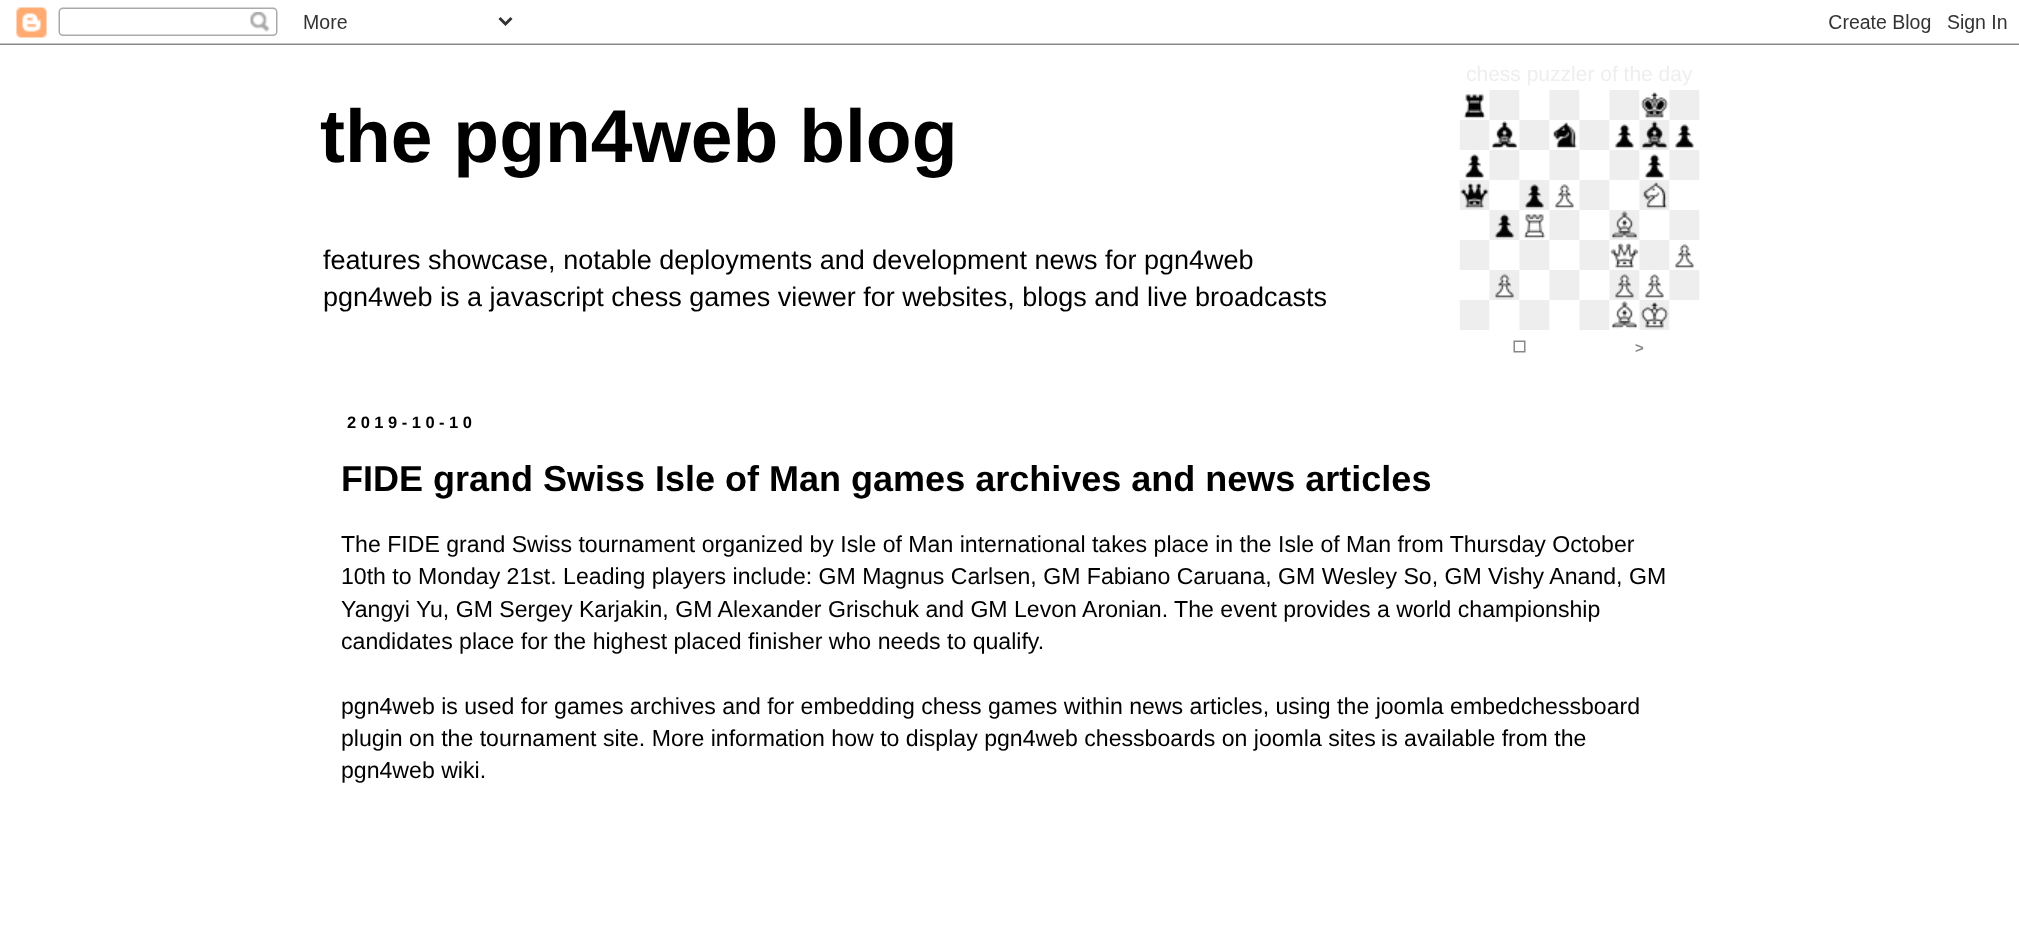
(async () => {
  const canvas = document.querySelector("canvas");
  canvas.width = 2019;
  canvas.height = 930;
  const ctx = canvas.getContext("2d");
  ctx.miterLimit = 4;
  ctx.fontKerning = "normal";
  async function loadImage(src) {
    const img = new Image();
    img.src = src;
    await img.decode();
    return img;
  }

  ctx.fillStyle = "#ffffff";
  ctx.fillRect(0, 0, 2019, 930);
  ctx.drawImage(await loadImage("img/1.png"), 0, 7, 2019, 38);
  ctx.drawImage(await loadImage("img/2.png"), 1459, 90, 241, 263);
  ctx.font = "21px Liberation Sans";
  ctx.fillStyle = "#eeeeee";
  ctx.fillText("chess puzzler of the day", 1466, 81);
  ctx.font = "bold 75px Liberation Sans";
  ctx.fillStyle = "#000000";
  ctx.fillText("the pgn4web blog", 320, 162);
  ctx.font = "27px Liberation Sans";
  ctx.fillText("features showcase, notable deployments and development news for pgn4web", 323, 269);
  ctx.fillText("pgn4web is a javascript chess games viewer for websites, blogs and live broadcasts", 323, 306);
  ctx.letterSpacing = "4.5px";
  ctx.font = "bold 16.5px Liberation Sans";
  ctx.fillText("2019-10-10", 347, 428);
  ctx.letterSpacing = "0px";
  ctx.font = "bold 36px Liberation Sans";
  ctx.fillText("FIDE grand Swiss Isle of Man games archives and news articles", 341, 491);
  ctx.font = "23.1px Liberation Sans";
  for (const [text, x, y] of [
    ["The FIDE grand Swiss tournament organized by Isle of Man international takes place in the Isle of Man from Thursday October", 341, 552],
    ["10th to Monday 21st. Leading players include: GM Magnus Carlsen, GM Fabiano Caruana, GM Wesley So, GM Vishy Anand, GM", 341, 584],
    ["Yangyi Yu, GM Sergey Karjakin, GM Alexander Grischuk and GM Levon Aronian. The event provides a world championship", 341, 617],
    ["candidates place for the highest placed finisher who needs to qualify.", 341, 649],
    ["pgn4web is used for games archives and for embedding chess games within news articles, using the joomla embedchessboard", 341, 714],
    ["plugin on the tournament site. More information how to display pgn4web chessboards on joomla sites", 341, 746],
    ["is available from the", 1381, 746],
    ["pgn4web wiki.", 341, 778],
  ]) {
    ctx.fillText(text, x, y);
  }
})();
